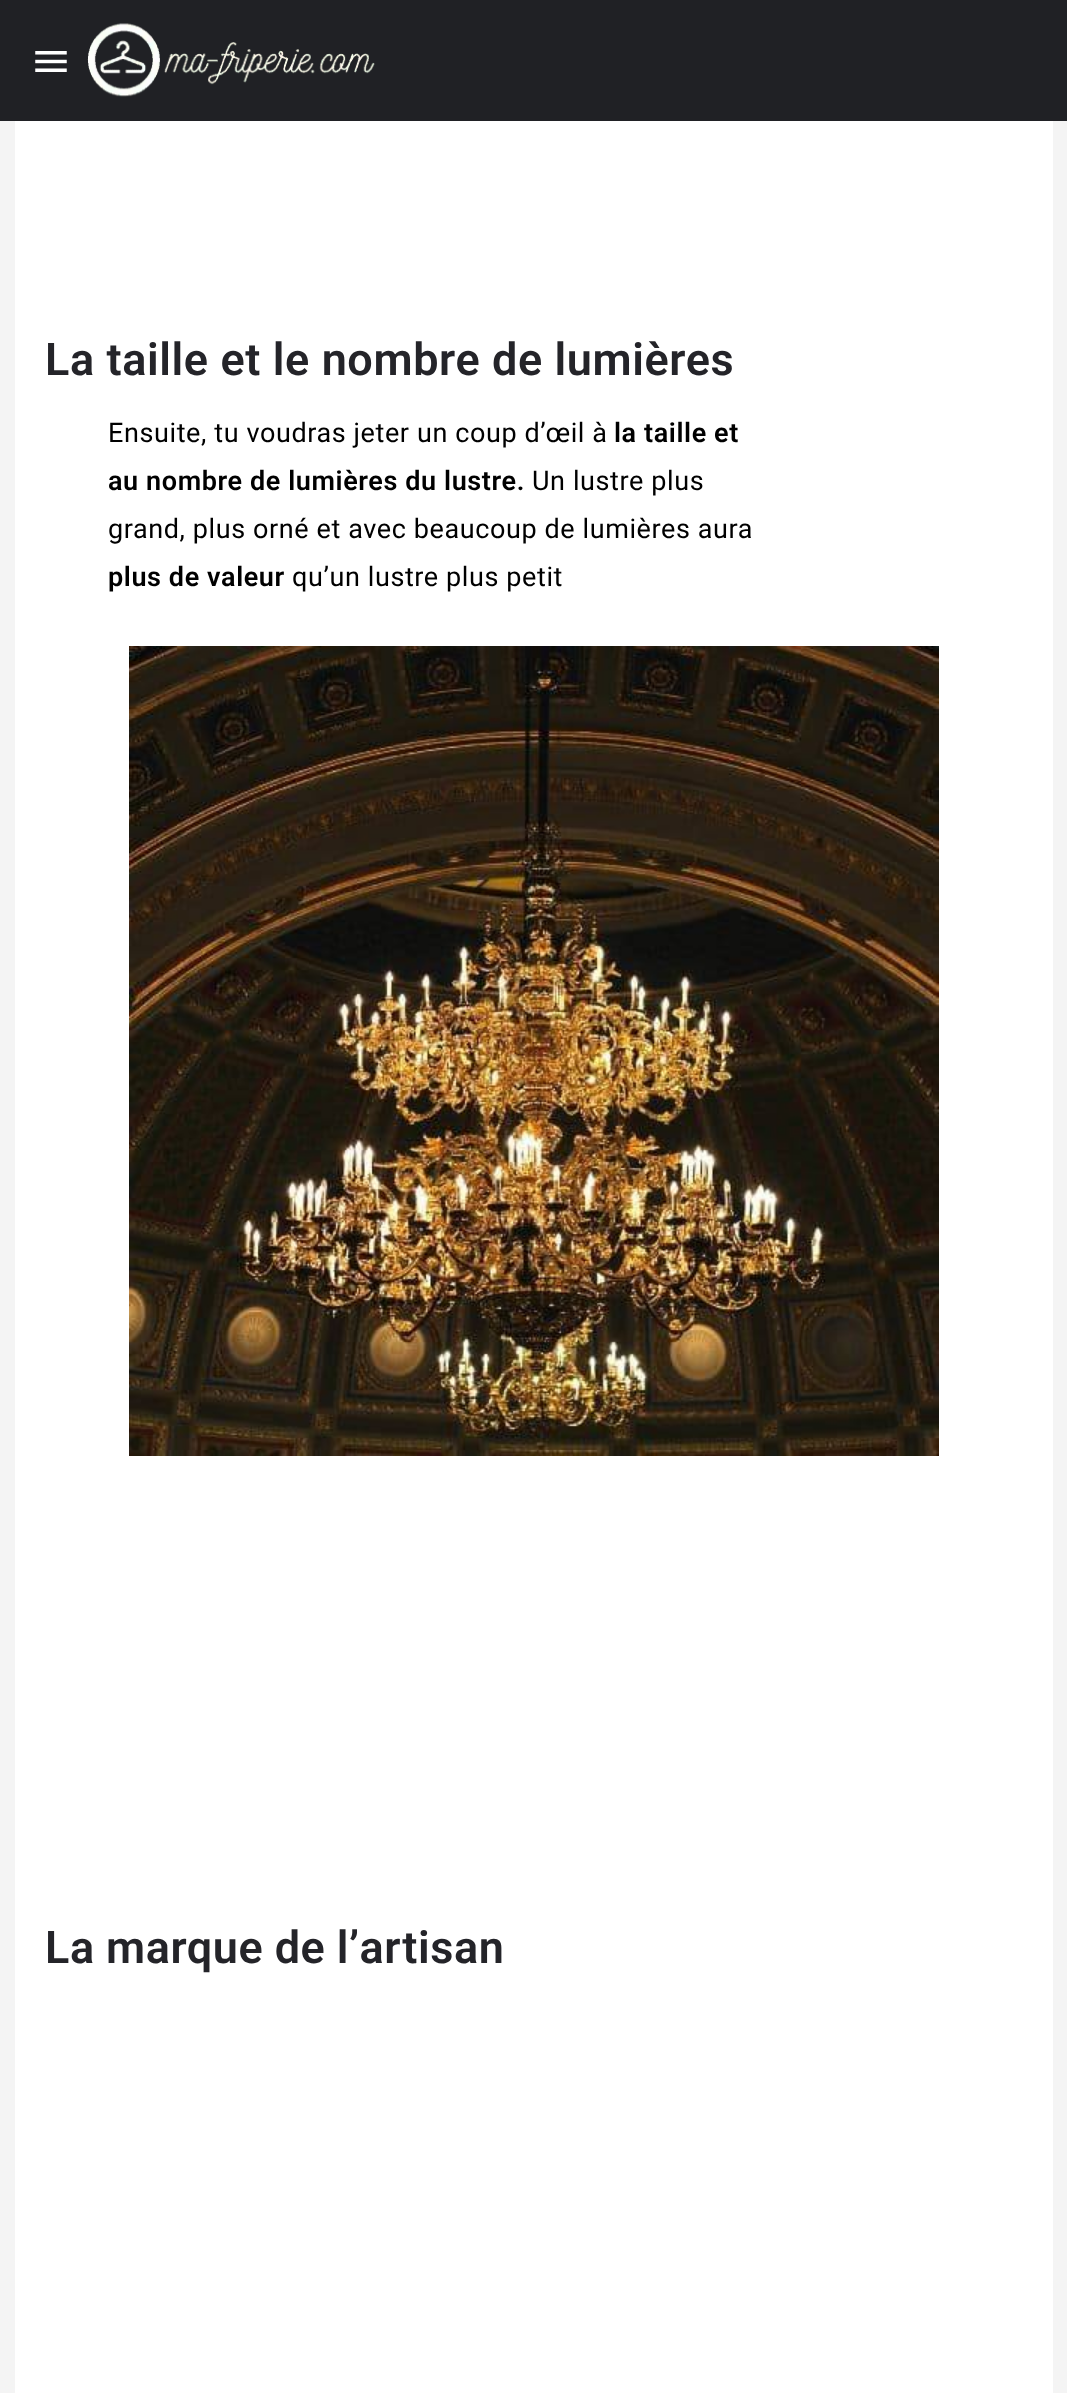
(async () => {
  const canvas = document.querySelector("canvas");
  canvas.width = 1067;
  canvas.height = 2393;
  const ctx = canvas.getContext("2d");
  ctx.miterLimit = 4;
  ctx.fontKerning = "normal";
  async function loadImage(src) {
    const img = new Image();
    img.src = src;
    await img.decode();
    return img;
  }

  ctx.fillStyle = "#f4f4f4";
  ctx.fillRect(0, 0, 1067, 2393);
  ctx.fillStyle = "#202125";
  ctx.fillRect(0, 0, 1067, 121);
  ctx.drawImage(await loadImage("img/1.png"), 35, 51, 32, 21);
  ctx.drawImage(await loadImage("img/2.png"), 87, 23, 288, 74);
  ctx.fillStyle = "#ffffff";
  ctx.fillRect(15, 121, 1038, 2272);
  ctx.drawImage(await loadImage("img/3.png"), 129, 646, 810, 810);
  ctx.letterSpacing = "0.6px";
  ctx.font = "600 45px Roboto";
  ctx.fillStyle = "#242429";
  ctx.fillText("La taille et le nombre de lumières", 45, 375);
  ctx.font = "27px Roboto";
  ctx.fillStyle = "#000000";
  ctx.fillText("Ensuite, tu voudras jeter un coup d’œil à", 108, 442);
  ctx.font = "600 27px Roboto";
  ctx.fillText("la taille et", 614, 442);
  ctx.fillText("au nombre de lumières du lustre.", 108, 490);
  ctx.font = "27px Roboto";
  ctx.fillText("Un lustre plus", 532, 490);
  ctx.fillText("grand, plus orné et avec beaucoup de lumières aura", 108, 538);
  ctx.font = "600 27px Roboto";
  ctx.fillText("plus de valeur", 108, 586);
  ctx.font = "27px Roboto";
  ctx.fillText("qu’un lustre plus petit", 292, 586);
  ctx.wordSpacing = "-0.5px";
  ctx.font = "600 45px Roboto";
  ctx.fillStyle = "#242429";
  ctx.fillText("La marque de l’artisan", 45, 1963);
})();
